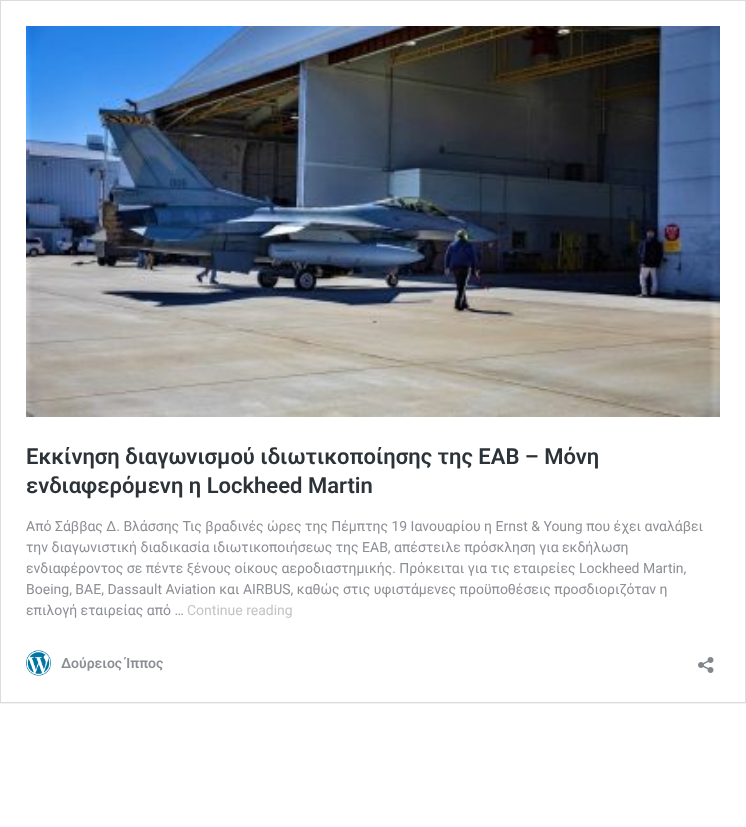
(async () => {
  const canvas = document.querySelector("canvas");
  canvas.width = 746;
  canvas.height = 827;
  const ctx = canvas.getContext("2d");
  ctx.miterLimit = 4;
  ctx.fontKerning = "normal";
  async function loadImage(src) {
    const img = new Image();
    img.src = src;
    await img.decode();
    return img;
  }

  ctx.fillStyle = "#ffffff";
  ctx.fillRect(0, 0, 746, 827);
  ctx.save();
  ctx.beginPath();
  ctx.rect(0, 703, 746, 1);
  ctx.clip();
  ctx.fillStyle = "rgba(0, 0, 0, 0.05)";
  ctx.filter = "blur(0.5px)";
  ctx.beginPath();
  ctx.rect(0, 1, 746, 703);
  ctx.fill();
  ctx.filter = "none";
  ctx.restore();
  ctx.strokeStyle = "#dcdcde";
  ctx.strokeRect(0.5, 0.5, 745, 702);
  ctx.drawImage(await loadImage("img/1.png"), 26, 26, 694, 391);
  ctx.drawImage(await loadImage("img/2.png"), 26, 650, 25, 26);
  ctx.drawImage(await loadImage("img/3.png"), 698, 657, 16, 16);
  ctx.font = "600 22px Roboto";
  ctx.fillStyle = "#2c3338";
  ctx.fillText("Εκκίνηση διαγωνισμού ιδιωτικοποίησης της ΕΑΒ – Mόνη", 26, 464);
  ctx.fillText("ενδιαφερόμενη η Lockheed Martin", 26, 493);
  ctx.font = "14px Roboto";
  ctx.fillStyle = "#8c8f94";
  for (const [text, x, y] of [
    ["Από Σάββας Δ. Βλάσσης Τις βραδινές ώρες της Πέμπτης 19 Ιανουαρίου η Ernst & Young που έχει αναλάβει", 26, 531],
    ["την διαγωνιστική διαδικασία ιδιωτικοποιήσεως της ΕΑΒ, απέστειλε πρόσκληση για εκδήλωση", 26, 552],
    ["ενδιαφέροντος σε πέντε ξένους οίκους αεροδιαστημικής. Πρόκειται για τις εταιρείες Lockheed Martin,", 26, 573],
    ["Boeing, BAE, Dassault Aviation και AIRBUS, καθώς στις υφιστάμενες προϋποθέσεις προσδιοριζόταν η", 26, 594],
    ["επιλογή εταιρείας από …", 26, 615],
  ]) {
    ctx.fillText(text, x, y);
  }
  ctx.fillStyle = "#c3c4c7";
  ctx.fillText("Continue reading", 187, 615);
  ctx.font = "600 14px Roboto";
  ctx.fillStyle = "#8c8f94";
  ctx.fillText("Δούρειος Ίππος", 61, 668);
})();
